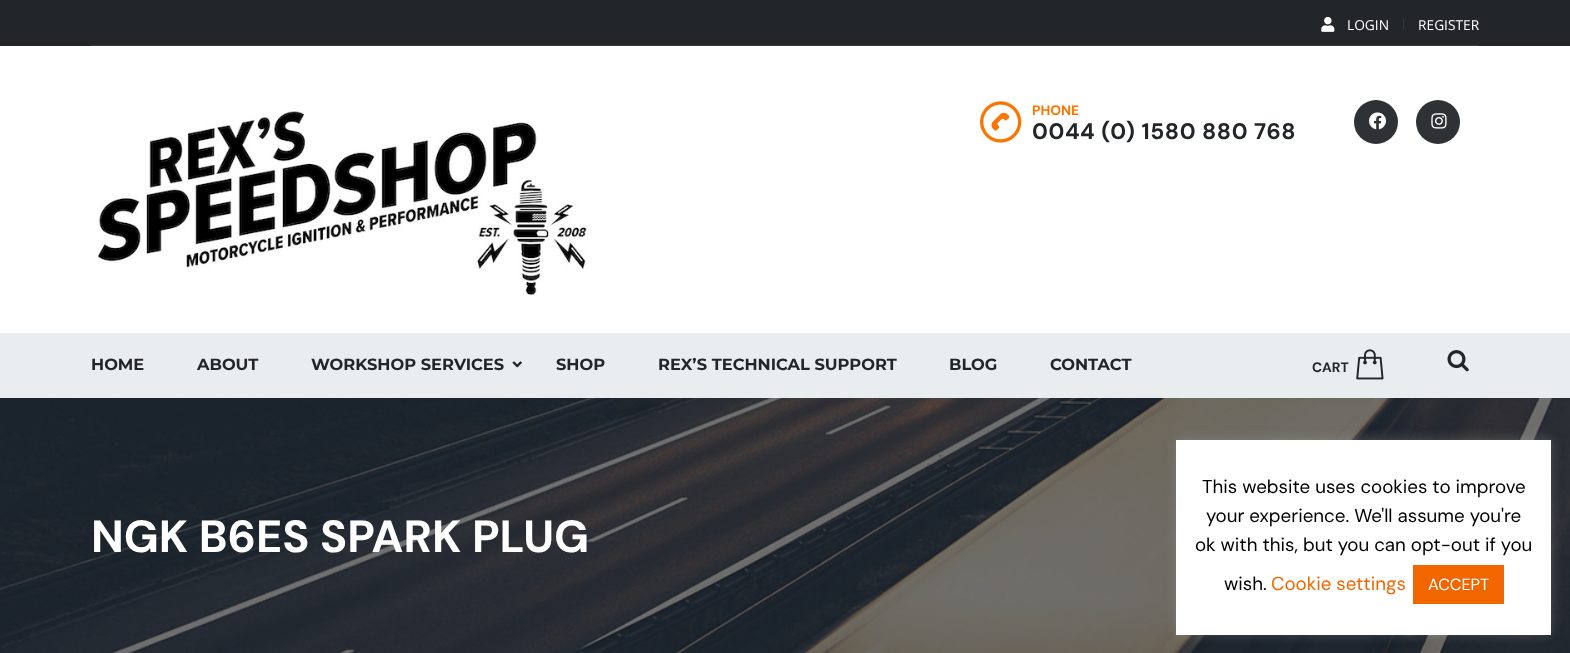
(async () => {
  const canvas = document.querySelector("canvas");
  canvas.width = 1570;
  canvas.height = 653;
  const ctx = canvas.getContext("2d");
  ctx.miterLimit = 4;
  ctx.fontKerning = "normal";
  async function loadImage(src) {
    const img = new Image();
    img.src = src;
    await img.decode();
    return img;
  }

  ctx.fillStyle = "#ffffff";
  ctx.fillRect(0, 0, 1570, 653);
  ctx.fillStyle = "#232628";
  ctx.fillRect(0, 0, 1570, 46);
  ctx.fillStyle = "#393c3e";
  ctx.fillRect(91, 45, 1388, 1);
  ctx.drawImage(await loadImage("img/1.png"), 1321, 16, 14, 16);
  ctx.fillStyle = "#373b3e";
  ctx.fillRect(1403, 18, 1, 12);
  ctx.drawImage(await loadImage("img/2.png"), 98, 111, 489, 185);
  ctx.drawImage(await loadImage("img/3.png"), 980, 101, 42, 42);
  ctx.fillStyle = "#2f3234";
  ctx.beginPath();
  ctx.arc(1376, 122, 22, 0, Math.PI * 2);
  ctx.fill();
  ctx.drawImage(await loadImage("img/4.png"), 1369, 112, 17, 18);
  ctx.beginPath();
  ctx.arc(1438, 122, 22, 0, Math.PI * 2);
  ctx.fill();
  ctx.drawImage(await loadImage("img/5.png"), 1431, 113, 16, 16);
  ctx.fillStyle = "#eaedf0";
  ctx.fillRect(0, 333, 1570, 65);
  ctx.drawImage(await loadImage("img/6.png"), 512, 361, 10, 7);
  ctx.drawImage(await loadImage("img/7.png"), 1356, 349, 28, 31);
  ctx.drawImage(await loadImage("img/8.png"), 1447, 350, 22, 22);
  ctx.drawImage(await loadImage("img/9.png"), 0, 398, 1570, 255);
  ctx.fillStyle = "rgba(172, 171, 171, 0.3)";
  ctx.filter = "blur(6px)";
  ctx.beginPath();
  ctx.rect(1176, 439, 375, 195);
  ctx.fill();
  ctx.filter = "none";
  ctx.fillStyle = "#ffffff";
  ctx.fillRect(1176, 440, 375, 195);
  ctx.fillStyle = "#f26600";
  ctx.fillRect(1413, 565, 91, 39);
  ctx.font = "13.75px Open Sans";
  ctx.fillStyle = "#ffffff";
  ctx.fillText("LOGIN", 1347, 30);
  ctx.fillText("REGISTER", 1418, 30);
  ctx.font = "bold 13.75px DM Sans";
  ctx.fillStyle = "#fa7601";
  ctx.fillText("PHONE", 1032, 115);
  ctx.letterSpacing = "0.6px";
  ctx.font = "bold 22.5px DM Sans";
  ctx.fillStyle = "#232628";
  ctx.fillText("0044 (0) 1580 880 768", 1032, 139);
  ctx.letterSpacing = "0px";
  ctx.font = "bold 16.25px Montserrat";
  for (const [text, x, y] of [
    ["HOME", 91, 370],
    ["ABOUT", 197, 370],
    ["WORKSHOP SERVICES", 311, 370],
    ["SHOP", 556, 370],
    ["REX’S TECHNICAL SUPPORT", 658, 370],
    ["BLOG", 949, 370],
    ["CONTACT", 1050, 370],
  ]) {
    ctx.fillText(text, x, y);
  }
  ctx.font = "bold 13.75px DM Sans";
  ctx.fillText("CART", 1312, 372);
  ctx.font = "bold 45px DM Sans";
  ctx.fillStyle = "#ffffff";
  ctx.fillText("NGK B6ES SPARK PLUG", 91, 552);
  ctx.font = "18.75px DM Sans";
  ctx.fillStyle = "#000000";
  for (const [text, x, y] of [
    ["This website uses cookies to improve", 1202, 493],
    ["your experience. We'll assume you're", 1206, 522],
    ["ok with this, but you can opt-out if you", 1195, 551],
    ["wish.", 1224, 590],
  ]) {
    ctx.fillText(text, x, y);
  }
  ctx.fillStyle = "#f26600";
  ctx.fillText("Cookie settings", 1271, 590);
  ctx.font = "16.25px DM Sans";
  ctx.fillStyle = "#ffffff";
  ctx.fillText("ACCEPT", 1428, 590);
})();
